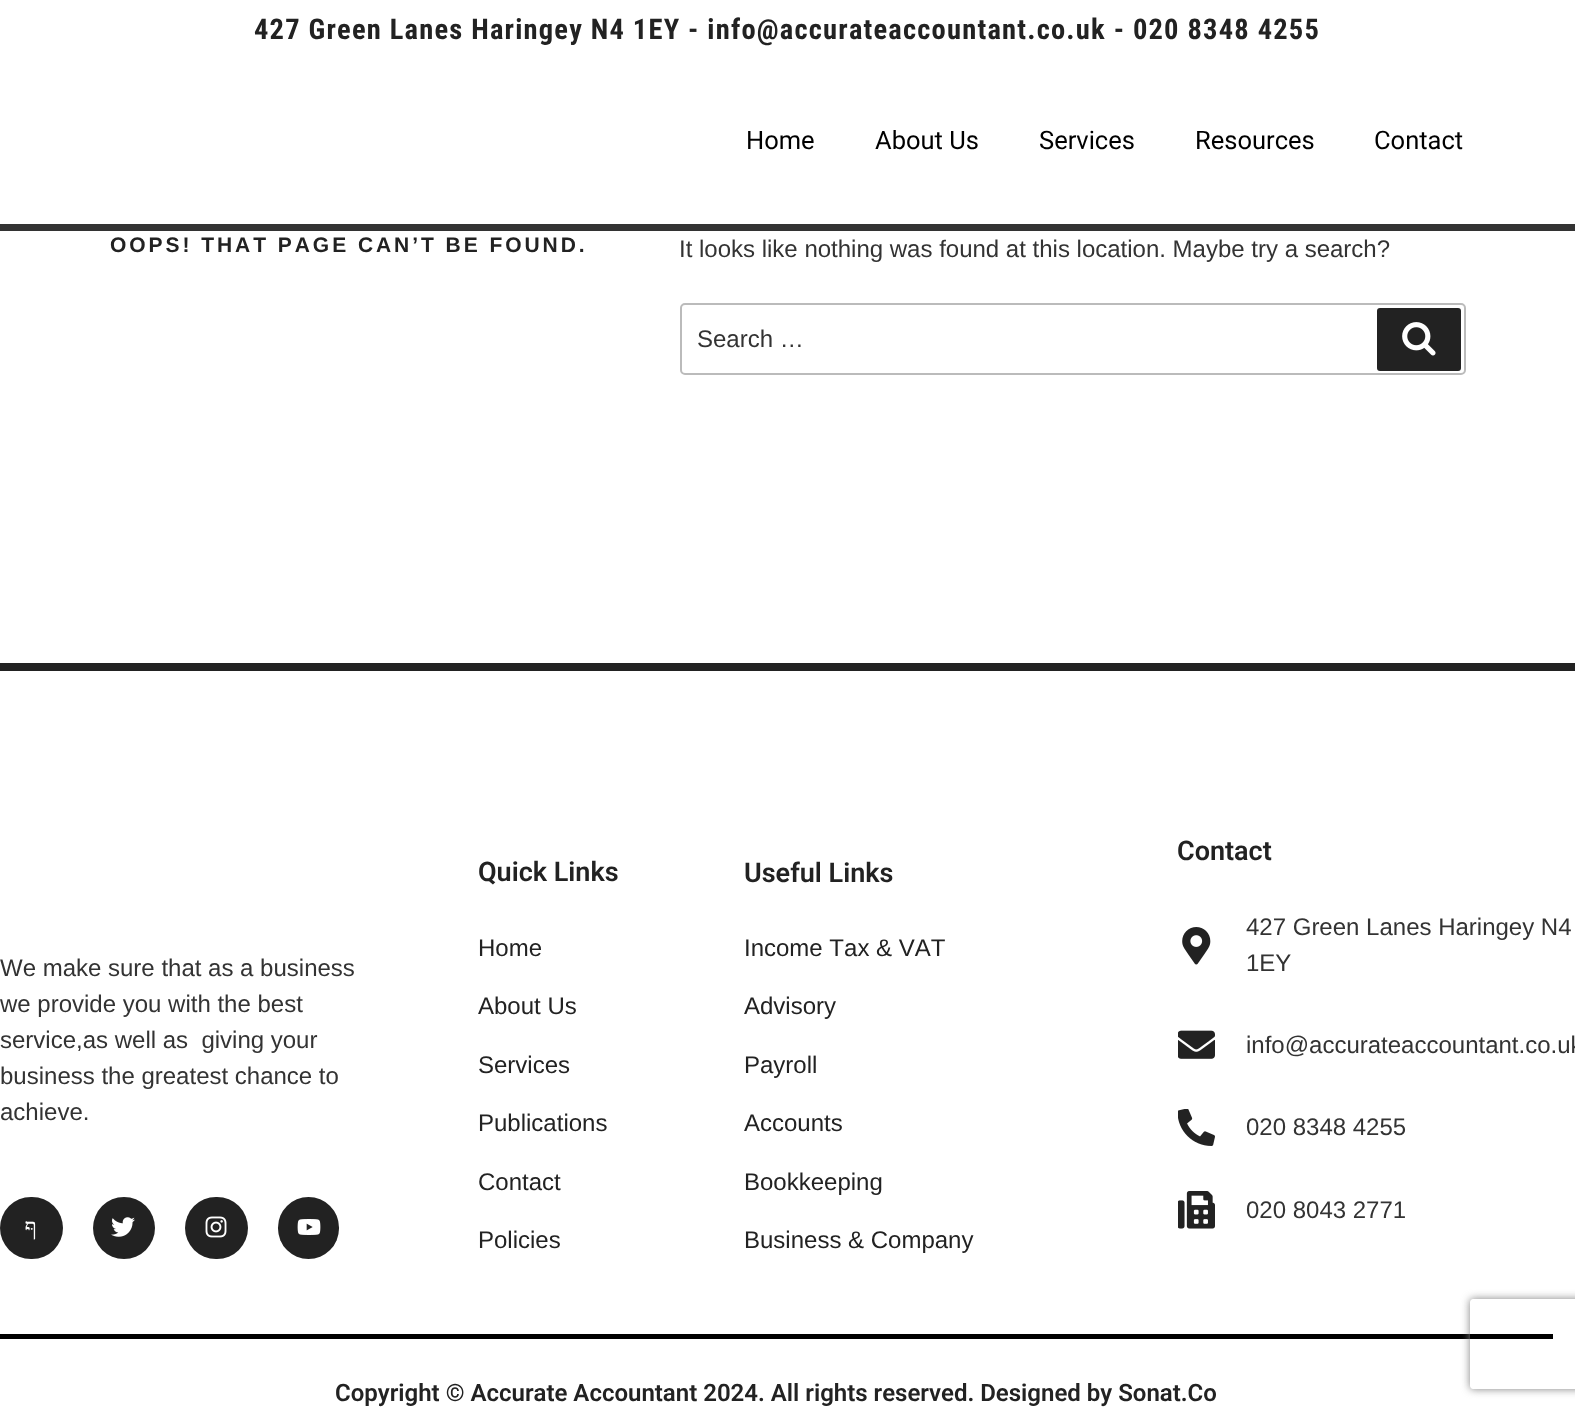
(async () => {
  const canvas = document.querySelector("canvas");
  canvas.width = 1575;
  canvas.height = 1409;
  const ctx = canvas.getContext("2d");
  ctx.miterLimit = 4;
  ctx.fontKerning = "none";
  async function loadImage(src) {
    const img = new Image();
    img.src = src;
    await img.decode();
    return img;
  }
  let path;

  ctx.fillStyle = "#ffffff";
  ctx.fillRect(0, 0, 1575, 1409);
  ctx.fillStyle = "#333333";
  ctx.fillRect(0, 224, 1575, 7);
  ctx.beginPath();
  ctx.roundRect(681, 304, 784, 70, 4);
  ctx.strokeStyle = "#bbbbbb";
  ctx.lineWidth = 2;
  ctx.stroke();
  ctx.fillStyle = "#222222";
  ctx.beginPath();
  ctx.roundRect(1377, 308, 84, 63, 3);
  ctx.fill();
  ctx.drawImage(await loadImage("img/1.png"), 1402, 322, 34, 34);
  ctx.fillRect(0, 663, 1575, 8);
  ctx.beginPath();
  ctx.roundRect(0, 1197, 63, 62, 31);
  ctx.fill();
  ctx.beginPath();
  ctx.arc(124, 1228, 31, 0, Math.PI * 2);
  ctx.fill();
  ctx.drawImage(await loadImage("img/2.png"), 111, 1217, 24, 20);
  ctx.beginPath();
  ctx.roundRect(185, 1197, 63, 62, 31);
  ctx.fill();
  ctx.drawImage(await loadImage("img/3.png"), 205, 1216, 22, 22);
  ctx.beginPath();
  ctx.roundRect(278, 1197, 61, 62, 30.5);
  ctx.fill();
  ctx.drawImage(await loadImage("img/4.png"), 297, 1219, 24, 16);
  ctx.drawImage(await loadImage("img/5.png"), 1182, 927, 29, 38);
  ctx.drawImage(await loadImage("img/6.png"), 1178, 1030, 37, 29);
  ctx.drawImage(await loadImage("img/7.png"), 1178, 1109, 37, 37);
  ctx.drawImage(await loadImage("img/8.png"), 1178, 1191, 37, 38);
  ctx.fillStyle = "#000000";
  ctx.fillRect(0, 1334, 1553, 5);
  ctx.save();
  path = new Path2D("M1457 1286H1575V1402H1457ZM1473 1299H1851C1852.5 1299 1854 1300.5 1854 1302V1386C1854 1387.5 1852.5 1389 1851 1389H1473C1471.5 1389 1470 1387.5 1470 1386V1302C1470 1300.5 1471.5 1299 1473 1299Z");
  ctx.clip(path, "evenodd");
  ctx.fillStyle = "#808080";
  ctx.filter = "blur(4px)";
  ctx.beginPath();
  ctx.roundRect(1470, 1299, 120, 90, 3);
  ctx.fill();
  ctx.filter = "none";
  ctx.restore();
  ctx.letterSpacing = "1.2px";
  ctx.font = "bold 28.5px Roboto Condensed";
  ctx.fillStyle = "#222222";
  ctx.fillText("427 Green Lanes Haringey N4 1EY - info@accurateaccountant.co.uk - 020 8348 4255", 254, 39);
  ctx.letterSpacing = "0px";
  ctx.font = "25.5px Roboto";
  ctx.fillStyle = "#000000";
  for (const [text, x, y] of [
    ["Home", 746, 149],
    ["About Us", 875, 149],
    ["Services", 1039, 149],
    ["Resources", 1195, 149],
    ["Contact", 1374, 149],
  ]) {
    ctx.fillText(text, x, y);
  }
  ctx.letterSpacing = "2.95px";
  ctx.font = "bold 21px Liberation Sans";
  ctx.fillStyle = "#222222";
  ctx.fillText("OOPS! THAT PAGE CAN’T BE FOUND.", 110, 252);
  ctx.letterSpacing = "0px";
  ctx.font = "24px Liberation Sans";
  ctx.fillStyle = "#333333";
  for (const [text, x, y] of [
    ["It looks like nothing was found at this location. Maybe try a search?", 679, 257],
    ["Search …", 697, 347],
    ["We make sure that as a business", 0, 976],
    ["we provide you with the best", 0, 1012],
    ["service,as well as  giving your", 0, 1048],
    ["business the greatest chance to", 0, 1084],
    ["achieve.", 0, 1120],
  ]) {
    ctx.fillText(text, x, y);
  }
  ctx.direction = "rtl";
  ctx.font = "24px Liberation Serif";
  ctx.fillStyle = "#ffffff";
  ctx.fillText("ףּ", 37, 1235);
  ctx.direction = "ltr";
  ctx.font = "600 27px Roboto";
  ctx.fillStyle = "#222222";
  ctx.fillText("Quick Links", 478, 881);
  ctx.font = "24px Liberation Sans";
  for (const [text, x, y] of [
    ["Home", 478, 956],
    ["About Us", 478, 1014],
    ["Services", 478, 1073],
    ["Publications", 478, 1131],
    ["Contact", 478, 1190],
    ["Policies", 478, 1248],
  ]) {
    ctx.fillText(text, x, y);
  }
  ctx.font = "600 27px Roboto";
  ctx.fillText("Useful Links", 744, 882);
  ctx.font = "24px Liberation Sans";
  for (const [text, x, y] of [
    ["Income Tax & VAT", 744, 956],
    ["Advisory", 744, 1014],
    ["Payroll", 744, 1073],
    ["Accounts", 744, 1131],
    ["Bookkeeping", 744, 1190],
    ["Business & Company", 744, 1248],
  ]) {
    ctx.fillText(text, x, y);
  }
  ctx.font = "600 27px Roboto";
  ctx.fillText("Contact", 1177, 860);
  ctx.font = "24px Liberation Sans";
  ctx.fillStyle = "#333333";
  for (const [text, x, y] of [
    ["427 Green Lanes Haringey N4", 1246, 935],
    ["1EY", 1246, 971],
    ["info@accurateaccountant.co.uk", 1246, 1053],
    ["020 8348 4255", 1246, 1135],
    ["020 8043 2771", 1246, 1218],
  ]) {
    ctx.fillText(text, x, y);
  }
  ctx.font = "600 24px Roboto";
  ctx.fillStyle = "#222222";
  ctx.fillText("Copyright © Accurate Accountant 2024. All rights reserved. Designed by Sonat.Co", 335, 1401);
})();
